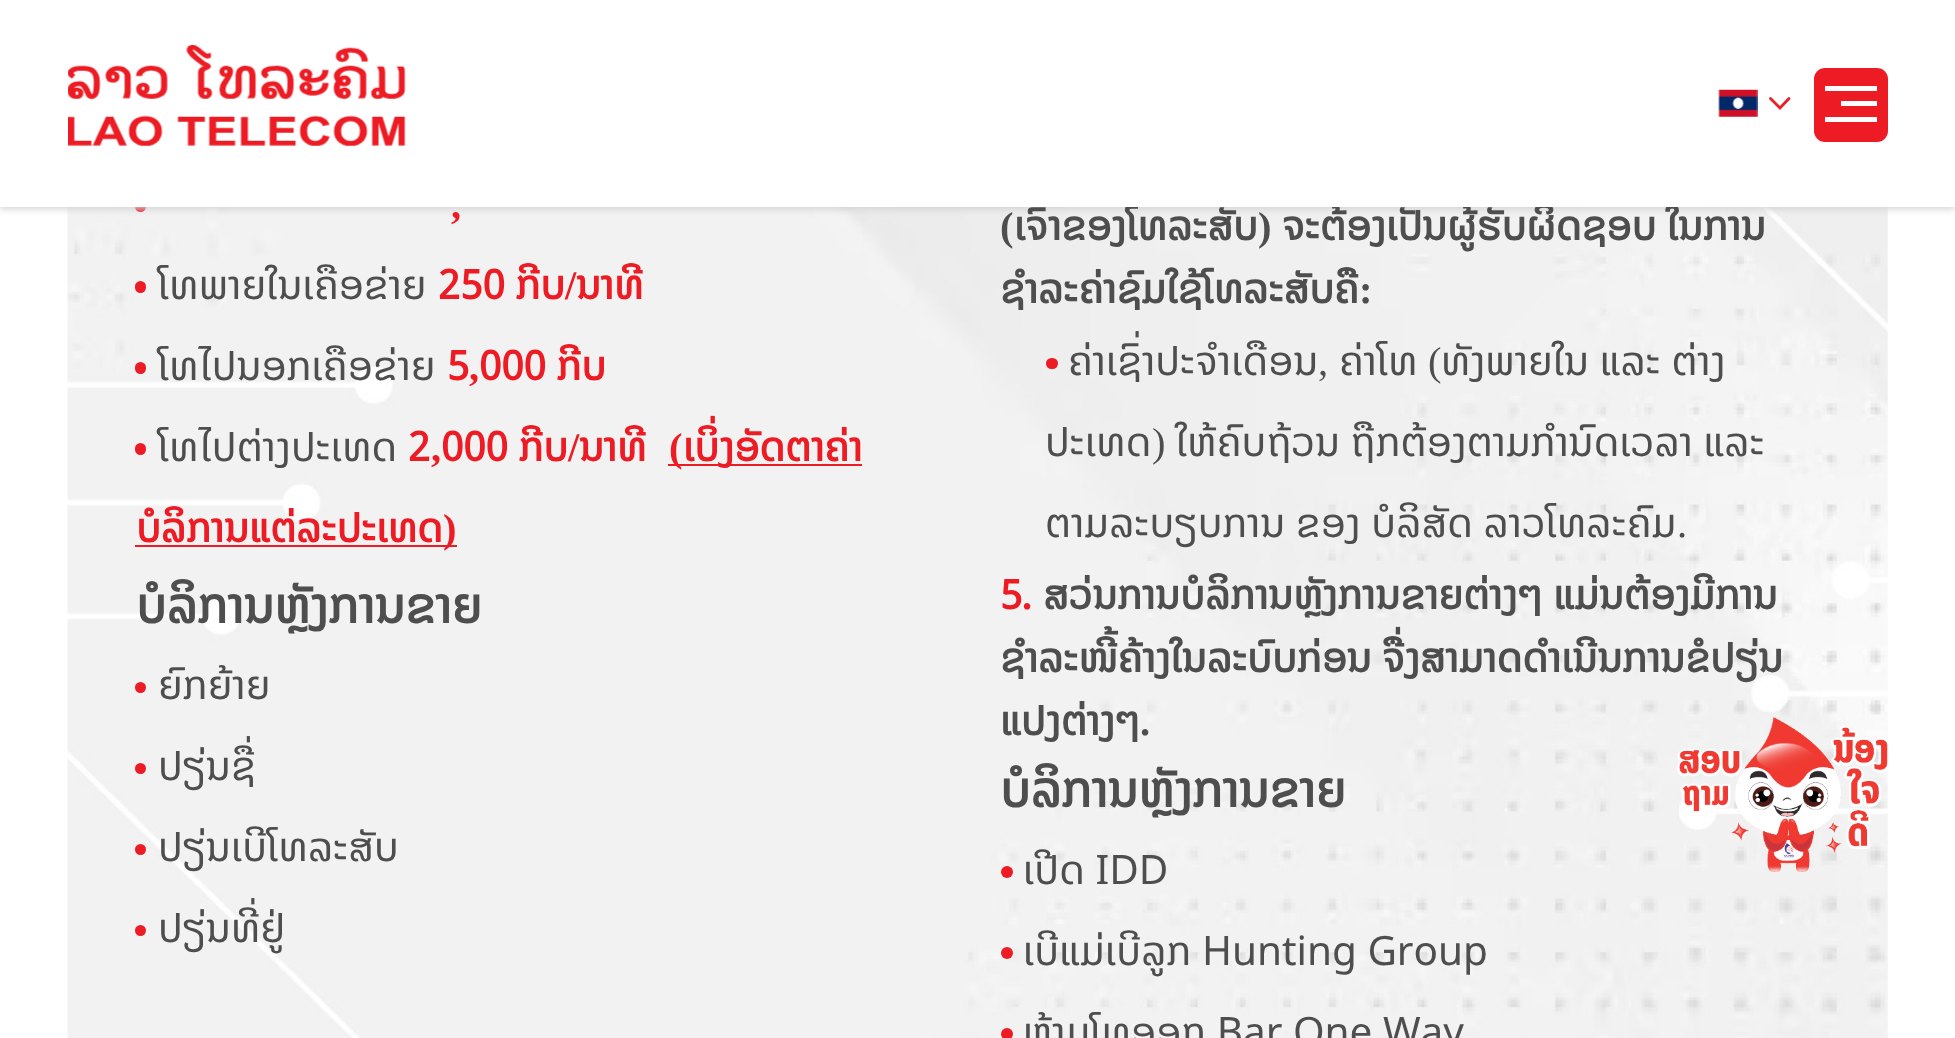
(async () => {
  const canvas = document.querySelector("canvas");
  canvas.width = 1955;
  canvas.height = 1038;
  const ctx = canvas.getContext("2d");
  ctx.miterLimit = 4;
  ctx.fontKerning = "normal";
  async function loadImage(src) {
    const img = new Image();
    img.src = src;
    await img.decode();
    return img;
  }
  let path;

  ctx.fillStyle = "#ffffff";
  ctx.fillRect(0, 0, 1955, 1038);
  ctx.drawImage(await loadImage("img/3.png"), 67, 207, 1821, 831);
  ctx.fillStyle = "#ed1c24";
  ctx.beginPath();
  ctx.roundRect(135, 200, 11, 12, 5.5);
  ctx.fill();
  ctx.fillStyle = "#d1d1d1";
  ctx.filter = "blur(3.5px)";
  ctx.beginPath();
  ctx.rect(0, 2, 1955, 207);
  ctx.fill();
  ctx.filter = "none";
  ctx.fillStyle = "#ed1c24";
  ctx.beginPath();
  ctx.roundRect(135, 281, 11, 12, 5.5);
  ctx.fill();
  ctx.beginPath();
  ctx.roundRect(135, 362, 11, 12, 5.5);
  ctx.fill();
  ctx.beginPath();
  ctx.roundRect(135, 443, 11, 12, 5.5);
  ctx.fill();
  ctx.fillRect(668, 464, 194, 2);
  ctx.fillRect(135, 545, 322, 2);
  ctx.beginPath();
  ctx.arc(140.5, 687.5, 5.5, 0, Math.PI * 2);
  ctx.fill();
  ctx.beginPath();
  ctx.arc(140.5, 768.5, 5.5, 0, Math.PI * 2);
  ctx.fill();
  ctx.beginPath();
  ctx.arc(140.5, 849.5, 5.5, 0, Math.PI * 2);
  ctx.fill();
  ctx.beginPath();
  ctx.arc(140.5, 930.5, 5.5, 0, Math.PI * 2);
  ctx.fill();
  ctx.beginPath();
  ctx.roundRect(1046, 358, 12, 11, 5.5);
  ctx.fill();
  ctx.beginPath();
  ctx.arc(1007, 872, 6, 0, Math.PI * 2);
  ctx.fill();
  ctx.beginPath();
  ctx.arc(1007, 953, 6, 0, Math.PI * 2);
  ctx.fill();
  ctx.beginPath();
  ctx.arc(1007, 1034, 6, 0, Math.PI * 2);
  ctx.fill();
  ctx.drawImage(await loadImage("img/4.png"), 1677, 717, 211, 155);
  ctx.font = "bold 40.5px Liberation Serif";
  ctx.fillText(",", 451, 218);
  ctx.font = "40.5px Noto Sans Lao";
  ctx.fillStyle = "#4e4e4e";
  ctx.fillText("ໂທພາຍໃນເຄືອຂ່າຍ", 158, 299);
  ctx.font = "bold 40.5px Noto Sans Lao";
  ctx.fillStyle = "#ed1c24";
  ctx.fillText("250 ກີບ", 438, 299);
  ctx.font = "bold 40.5px Liberation Serif";
  ctx.fillText("/", 565, 299);
  ctx.font = "bold 40.5px Noto Sans Lao";
  ctx.fillText("ນາທີ", 576, 299);
  ctx.font = "40.5px Noto Sans Lao";
  ctx.fillStyle = "#4e4e4e";
  ctx.fillText("ໂທໄປນອກເຄືອຂ່າຍ", 158, 380);
  ctx.font = "bold 40.5px Noto Sans Lao";
  ctx.fillStyle = "#ed1c24";
  ctx.fillText("5", 447, 380);
  ctx.fillText("000 ກີບ", 479, 380);
  ctx.font = "bold 40.5px Liberation Serif";
  ctx.fillText(",", 469, 380);
  ctx.font = "40.5px Noto Sans Lao";
  ctx.fillStyle = "#4e4e4e";
  ctx.fillText("ໂທໄປຕ່າງປະເທດ", 158, 461);
  ctx.font = "bold 40.5px Noto Sans Lao";
  ctx.fillStyle = "#ed1c24";
  ctx.fillText("2", 408, 461);
  ctx.fillText("000 ກີບ", 441, 461);
  ctx.font = "bold 40.5px Liberation Serif";
  ctx.fillText("/", 568, 461);
  ctx.font = "bold 40.5px Noto Sans Lao";
  ctx.fillText("ນາທີ", 579, 461);
  ctx.font = "bold 40.5px Liberation Serif";
  ctx.fillText("(", 669, 461);
  ctx.font = "bold 40.5px Noto Sans Lao";
  ctx.fillText("ເບິ່ງອັດຕາຄ່າ", 683, 461);
  ctx.font = "bold 40.5px Liberation Serif";
  ctx.fillText(",", 431, 461);
  ctx.font = "bold 40.5px Noto Sans Lao";
  ctx.fillText("ບໍລິການແຕ່ລະປະເທດ", 136, 542);
  ctx.font = "bold 40.5px Liberation Serif";
  ctx.fillText(")", 443, 542);
  ctx.font = "bold 49.5px Noto Sans Lao";
  ctx.fillStyle = "#4e4e4e";
  ctx.fillText("ບໍລິການຫຼັງການຂາຍ", 136, 623);
  ctx.font = "40.5px Noto Sans Lao";
  for (const [text, x, y] of [
    ["ຍົກຍ້າຍ", 158, 699],
    ["ປຽ່ນຊື່", 158, 780],
    ["ປຽ່ນເບີໂທລະສັບ", 158, 861],
    ["ປຽ່ນທີ່ຢູ່", 158, 942],
  ]) {
    ctx.fillText(text, x, y);
  }
  ctx.font = "bold 40.5px Noto Sans Lao";
  ctx.fillText("ຈະຕ້ອງເປັນຜູ້ຮັບຜິດຊອບ ໃນການ", 1282, 240);
  ctx.font = "bold 40.5px Liberation Serif";
  ctx.fillText("(", 1000, 240);
  ctx.font = "bold 40.5px Noto Sans Lao";
  ctx.fillText("ເຈົ້າຂອງໂທລະສັບ", 1014, 240);
  ctx.fillStyle = "#ffffff";
  ctx.fillRect(0, 0, 1955, 207);
  ctx.fillStyle = "#ed1c24";
  ctx.beginPath();
  ctx.roundRect(1814, 68, 74, 74, 11);
  ctx.fill();
  for (const [x, y, w, h, color] of [
    [1841, 101, 36, 5, "#ffffff"],
    [1825, 117, 52, 5, "#ffffff"],
    [1825, 86, 52, 5, "#ffffff"],
  ]) {
    ctx.fillStyle = color;
    ctx.fillRect(x, y, w, h);
  }
  path = new Path2D("M1770.5 98.5L1780 108L1789 98.5");
  ctx.strokeStyle = "#ed1c24";
  ctx.lineWidth = 2.8;
  ctx.lineCap = "round";
  ctx.stroke(path);
  ctx.drawImage(await loadImage("img/2.png"), 1718, 89, 40, 28);
  ctx.drawImage(await loadImage("img/1.png"), 68, 45, 338, 101);
  ctx.font = "bold 40.5px Liberation Serif";
  ctx.fillStyle = "#4e4e4e";
  ctx.fillText(")", 1258, 240);
  ctx.font = "bold 40.5px Noto Sans Lao";
  ctx.fillText("ຊຳລະຄ່າຊົມໃຊ້ໂທລະສັບຄື", 1000, 303);
  ctx.font = "bold 40.5px Liberation Serif";
  ctx.fillText(":", 1359, 303);
  ctx.font = "40.5px Noto Sans Lao";
  ctx.fillText("ຄ່າເຊົ່າປະຈຳເດືອນ", 1068, 375);
  ctx.fillText("ຄ່າໂທ", 1339, 375);
  ctx.font = "40.5px Liberation Serif";
  ctx.fillText("(", 1428, 375);
  ctx.font = "40.5px Noto Sans Lao";
  ctx.fillText("ທັງພາຍໃນ ແລະ ຕ່າງ", 1441, 375);
  ctx.font = "40.5px Liberation Serif";
  ctx.fillText(",", 1318, 375);
  ctx.font = "40.5px Noto Sans Lao";
  ctx.fillText("ປະເທດ", 1045, 456);
  ctx.font = "40.5px Liberation Serif";
  ctx.fillText(")", 1152, 456);
  ctx.font = "40.5px Noto Sans Lao";
  ctx.fillText("ໃຫ້ຄົບຖ້ວນ ຖືກຕ້ອງຕາມກຳນົດເວລາ ແລະ", 1176, 456);
  ctx.fillText("ຕາມລະບຽບການ ຂອງ ບໍລິສັດ ລາວໂທລະຄົມ", 1045, 537);
  ctx.font = "40.5px Liberation Serif";
  ctx.fillText(".", 1677, 537);
  ctx.font = "bold 40.5px Noto Sans Lao";
  ctx.fillStyle = "#ed1c24";
  ctx.fillText("5", 1000, 609);
  ctx.font = "bold 40.5px Liberation Serif";
  ctx.fillText(".", 1022, 609);
  ctx.font = "bold 40.5px Noto Sans Lao";
  ctx.fillStyle = "#4e4e4e";
  for (const [text, x, y] of [
    ["ສວ່ນການບໍລິການຫຼັງການຂາຍຕ່າງໆ ແມ່ນຕ້ອງມີການ", 1043, 609],
    ["ຊຳລະໜີ້ຄ້າງໃນລະບົບກ່ອນ ຈື່ງສາມາດດຳເນີນການຂໍປຽ່ນ", 1000, 672],
    ["ແປງຕ່າງໆ", 1000, 735],
  ]) {
    ctx.fillText(text, x, y);
  }
  ctx.font = "bold 40.5px Liberation Serif";
  ctx.fillText(".", 1140, 735);
  ctx.font = "bold 49.5px Noto Sans Lao";
  ctx.fillText("ບໍລິການຫຼັງການຂາຍ", 1000, 807);
  ctx.font = "40.5px Noto Sans Lao";
  for (const [text, x, y] of [
    ["ເປີດ IDD", 1023, 884],
    ["ເບີແມ່ເບີລູກ Hunting Group", 1023, 965],
    ["ຫ້າມໂທອອກ Bar One Way", 1023, 1046],
  ]) {
    ctx.fillText(text, x, y);
  }
})();
